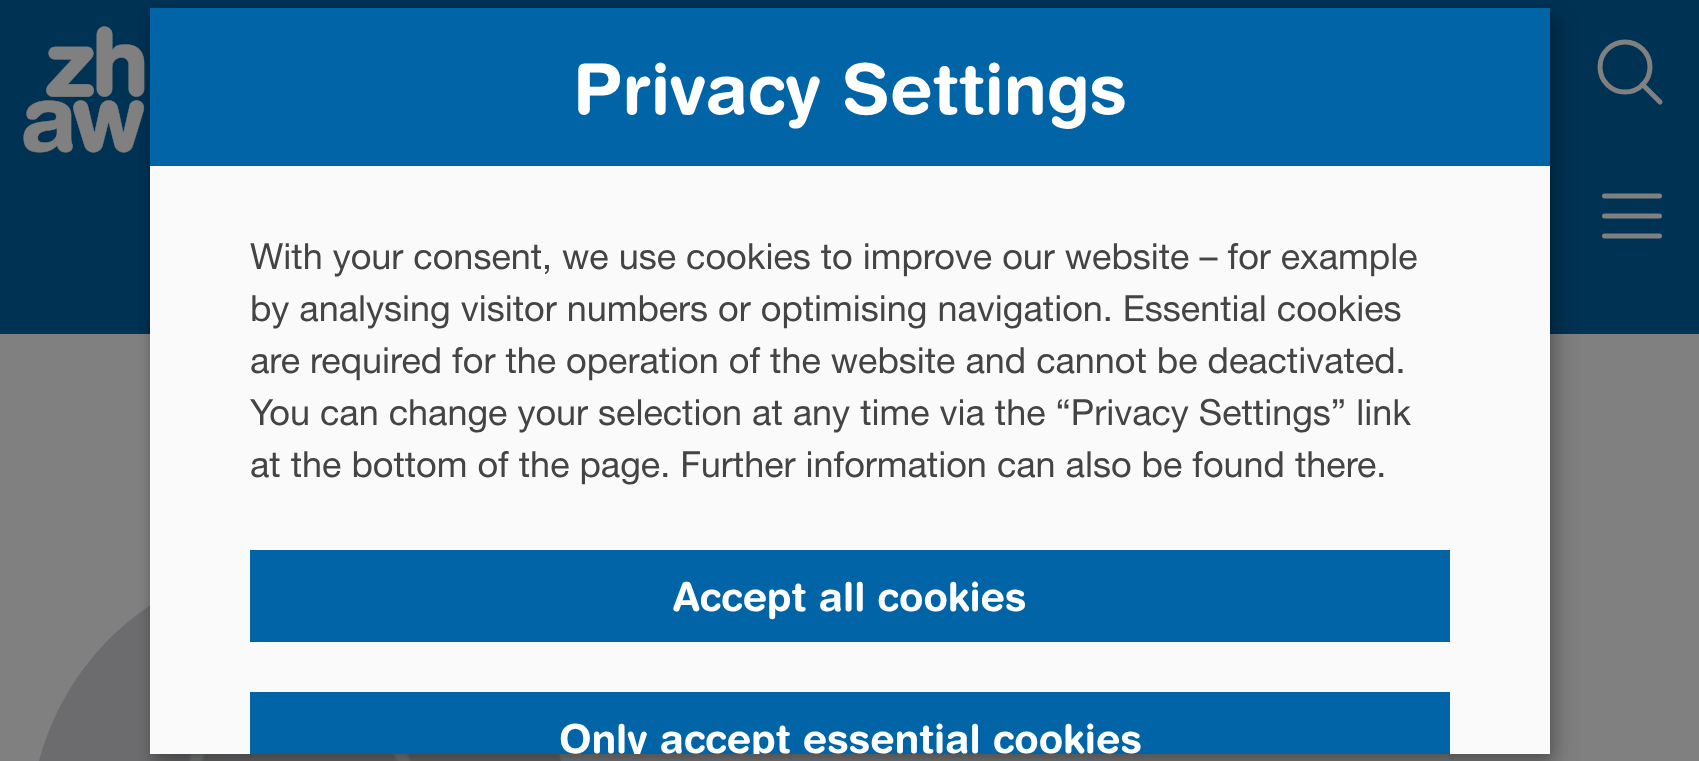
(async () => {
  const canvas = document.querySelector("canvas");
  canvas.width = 1699;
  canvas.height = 761;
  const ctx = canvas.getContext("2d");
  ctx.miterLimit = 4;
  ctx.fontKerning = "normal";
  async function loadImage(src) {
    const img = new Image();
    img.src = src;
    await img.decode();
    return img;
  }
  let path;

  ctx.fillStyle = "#808080";
  ctx.fillRect(0, 0, 1699, 761);
  ctx.fillStyle = "#003253";
  ctx.fillRect(0, 0, 1699, 334);
  ctx.drawImage(await loadImage("img/1.png"), 23, 26, 122, 127);
  ctx.beginPath();
  ctx.arc(1625, 67, 25, 0, Math.PI * 2);
  ctx.strokeStyle = "#808080";
  ctx.lineWidth = 5;
  ctx.stroke();
  path = new Path2D("M1642.5 84.5L1660 102");
  ctx.lineCap = "round";
  ctx.lineJoin = "round";
  ctx.stroke(path);
  path = new Path2D("M1604.5 216H1659.5M1604.5 196H1659.5M1604.5 236H1659.5");
  ctx.stroke(path);
  ctx.drawImage(await loadImage("img/2.png"), 39, 605, 522, 156);
  ctx.fillStyle = "rgba(0, 0, 0, 0.19)";
  ctx.filter = "blur(10px)";
  ctx.beginPath();
  ctx.rect(160, 18, 1400, 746);
  ctx.fill();
  ctx.filter = "none";
  ctx.fillStyle = "rgba(0, 0, 0, 0.2)";
  ctx.filter = "blur(6px)";
  ctx.beginPath();
  ctx.rect(150, 16, 1400, 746);
  ctx.fill();
  ctx.filter = "none";
  for (const [x, y, w, h, color] of [
    [150, 166, 1400, 588, "#fafafa"],
    [150, 8, 1400, 158, "#0064a6"],
    [250, 550, 1200, 92, "#0064a6"],
    [250, 692, 1200, 62, "#0064a6"],
  ]) {
    ctx.fillStyle = color;
    ctx.fillRect(x, y, w, h);
  }
  ctx.font = "bold 70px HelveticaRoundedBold";
  ctx.fillStyle = "#ffffff";
  ctx.fillText("Privacy Settings", 573, 114);
  ctx.font = "36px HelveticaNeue";
  ctx.fillStyle = "#444444";
  for (const [text, x, y] of [
    ["With your consent, we use cookies to improve our website – for example", 250, 269],
    ["by analysing visitor numbers or optimising navigation. Essential cookies", 250, 321],
    ["are required for the operation of the website and cannot be deactivated.", 250, 373],
    ["You can change your selection at any time via the “Privacy Settings” link", 250, 425],
    ["at the bottom of the page. Further information can also be found there.", 250, 477],
  ]) {
    ctx.fillText(text, x, y);
  }
  ctx.font = "bold 40px HelveticaRoundedBold";
  ctx.fillStyle = "#ffffff";
  ctx.fillText("Accept all cookies", 673, 611);
  ctx.save();
  ctx.beginPath();
  ctx.rect(150, 8, 1400, 746);
  ctx.clip();
  ctx.fillText("Only accept essential cookies", 559, 753);
  ctx.restore();
})();
